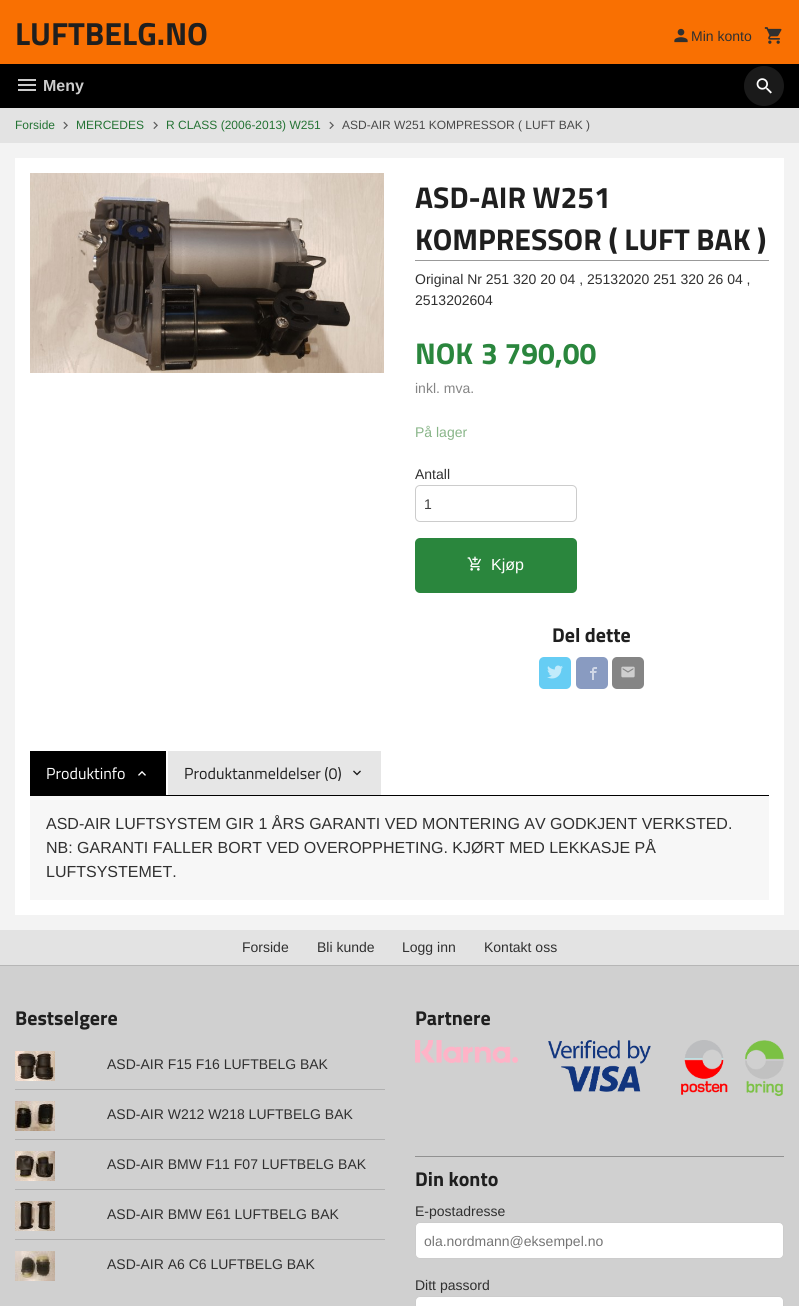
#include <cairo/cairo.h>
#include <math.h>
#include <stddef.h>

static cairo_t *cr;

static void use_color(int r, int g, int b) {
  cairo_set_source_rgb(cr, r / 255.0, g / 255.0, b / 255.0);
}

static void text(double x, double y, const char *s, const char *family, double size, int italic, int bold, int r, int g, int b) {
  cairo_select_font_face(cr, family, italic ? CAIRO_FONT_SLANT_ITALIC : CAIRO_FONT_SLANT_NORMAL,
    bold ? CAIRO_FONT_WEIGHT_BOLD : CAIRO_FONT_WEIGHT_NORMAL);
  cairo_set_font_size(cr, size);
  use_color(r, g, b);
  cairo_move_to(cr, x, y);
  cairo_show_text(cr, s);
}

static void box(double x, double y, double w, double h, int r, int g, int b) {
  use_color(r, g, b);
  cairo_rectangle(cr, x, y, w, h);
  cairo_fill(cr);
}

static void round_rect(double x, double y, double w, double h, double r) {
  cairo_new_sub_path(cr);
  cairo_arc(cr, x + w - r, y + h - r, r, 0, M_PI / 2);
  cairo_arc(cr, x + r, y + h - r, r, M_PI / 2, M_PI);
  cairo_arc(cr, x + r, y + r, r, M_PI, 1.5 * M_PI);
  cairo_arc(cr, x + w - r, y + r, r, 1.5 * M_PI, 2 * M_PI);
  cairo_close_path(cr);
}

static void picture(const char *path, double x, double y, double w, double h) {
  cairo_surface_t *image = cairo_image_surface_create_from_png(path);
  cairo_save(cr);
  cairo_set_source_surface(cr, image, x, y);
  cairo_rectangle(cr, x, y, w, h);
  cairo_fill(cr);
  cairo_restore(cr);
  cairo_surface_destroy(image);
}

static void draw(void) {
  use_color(243, 243, 243);
  cairo_paint(cr);
  box(0, 0, 799, 64, 249, 112, 2);
  picture("img_01.png", 674, 28, 14, 15);
  picture("img_02.png", 764, 27, 18, 17);
  box(0, 64, 799, 44, 0, 0, 0);
  picture("img_03.png", 18, 79, 18, 12);
  use_color(26, 26, 26);
  cairo_arc(cr, 764, 86, 20, 0, 2 * M_PI);
  cairo_fill(cr);
  picture("img_04.png", 756, 78, 16, 16);
  box(0, 108, 799, 35, 227, 227, 227);
  picture("img_05.png", 63, 121, 5, 8);
  picture("img_05.png", 153, 121, 5, 8);
  picture("img_05.png", 329, 121, 5, 8);
  box(15, 158, 769, 757, 255, 255, 255);
  picture("img_06.png", 30, 173, 354, 200);
  box(415, 260, 354, 1, 153, 153, 153);
  round_rect(415.5, 485.5, 161, 36, 4.5);
  use_color(204, 204, 204);
  cairo_set_line_width(cr, 1);
  cairo_stroke(cr);
  use_color(42, 134, 61);
  round_rect(415, 538, 162, 55, 5);
  cairo_fill(cr);
  picture("img_07.png", 467, 556, 14, 15);
  use_color(102, 205, 244);
  round_rect(539, 657, 32, 32, 5);
  cairo_fill(cr);
  picture("img_08.png", 547, 665, 16, 14);
  use_color(137, 155, 193);
  round_rect(576, 657, 32, 32, 5);
  cairo_fill(cr);
  picture("img_09.png", 590, 667, 7, 13);
  use_color(133, 133, 133);
  round_rect(612, 657, 32, 32, 5);
  cairo_fill(cr);
  picture("img_10.png", 621, 666, 14, 12);
  box(30, 751, 136, 44, 0, 0, 0);
  picture("img_11.png", 138, 771, 8, 5);
  box(168, 751, 213, 44, 230, 230, 230);
  picture("img_12.png", 353, 770, 8, 6);
  box(30, 796, 739, 104, 247, 247, 247);
  box(30, 795, 739, 1, 0, 0, 0);
  box(0, 930, 799, 35, 227, 227, 227);
  box(0, 966, 799, 340, 208, 208, 208);
  box(0, 965, 799, 1, 182, 182, 182);
  box(15, 1089, 370, 1, 177, 177, 177);
  picture("img_13.png", 15, 1051, 40, 30);
  box(15, 1139, 370, 1, 177, 177, 177);
  picture("img_14.png", 15, 1101, 40, 30);
  box(15, 1189, 370, 1, 177, 177, 177);
  picture("img_15.png", 15, 1151, 40, 30);
  box(15, 1239, 370, 1, 177, 177, 177);
  picture("img_16.png", 15, 1201, 40, 30);
  picture("img_17.png", 15, 1251, 40, 30);
  box(415, 1156, 369, 1, 145, 145, 145);
  picture("img_18.png", 415, 1040, 103, 23);
  picture("img_19.png", 548, 1040, 103, 52);
  picture("img_20.png", 681, 1040, 103, 56);
  use_color(255, 255, 255);
  round_rect(415.5, 1222.5, 368, 36, 4.5);
  cairo_fill_preserve(cr);
  use_color(204, 204, 204);
  cairo_stroke(cr);
  use_color(255, 255, 255);
  round_rect(415.5, 1296.5, 368, 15, 4.5);
  cairo_fill_preserve(cr);
  use_color(204, 204, 204);
  cairo_stroke(cr);
  text(15, 45, "LUFTBELG.NO", "Titillium Web", 32, 0, 1, 31, 31, 31);
  text(691, 41, "Min konto", "Liberation Sans", 14, 0, 0, 48, 48, 48);
  text(43, 91, "Meny", "Liberation Sans", 16, 0, 1, 204, 204, 204);
  text(15, 129, "Forside", "Liberation Sans", 12, 0, 0, 36, 115, 52);
  text(76, 129, "MERCEDES", "Liberation Sans", 12, 0, 0, 36, 115, 52);
  text(166, 129, "R CLASS (2006-2013) W251", "Liberation Sans", 12, 0, 0, 36, 115, 52);
  text(342, 129, "ASD-AIR W251 KOMPRESSOR ( LUFT BAK )", "Liberation Sans", 12, 0, 0, 73, 73, 73);
  text(415, 208, "ASD-AIR W251", "Titillium Web", 30, 0, 1, 31, 31, 31);
  text(415, 250, "KOMPRESSOR ( LUFT BAK )", "Titillium Web", 30, 0, 1, 31, 31, 31);
  text(415, 284, "Original Nr 251 320 20 04 , 25132020 251 320 26 04 ,", "Liberation Sans", 14, 0, 0, 48, 48, 48);
  text(415, 305, "2513202604", "Liberation Sans", 14, 0, 0, 48, 48, 48);
  text(415, 364, "NOK", "Titillium Web", 30, 0, 1, 42, 134, 61);
  text(481, 364, "3 790,00", "Titillium Web", 30, 0, 1, 42, 134, 61);
  text(415, 393, "inkl. mva.", "Liberation Sans", 14, 0, 0, 133, 133, 133);
  text(415, 437, "På lager", "Liberation Sans", 14, 0, 0, 136, 181, 136);
  text(415, 479, "Antall", "Liberation Sans", 14, 0, 0, 48, 48, 48);
  text(424, 509, "1", "Liberation Sans", 14, 0, 0, 64, 64, 64);
  text(491, 570, "Kjøp", "Liberation Sans", 16, 0, 0, 255, 255, 255);
  text(552, 642, "Del dette", "Titillium Web", 20, 0, 1, 31, 31, 31);
  text(46, 779, "Produktinfo", "Titillium Web", 16, 0, 0, 255, 255, 255);
  text(184, 779, "Produktanmeldelser (0)", "Titillium Web", 16, 0, 0, 31, 31, 31);
  text(46, 829, "ASD-AIR LUFTSYSTEM GIR 1 ÅRS GARANTI VED MONTERING AV GODKJENT VERKSTED.", "Liberation Sans", 16, 0, 0, 48, 48, 48);
  text(46, 853, "NB: GARANTI FALLER BORT VED OVEROPPHETING. KJØRT MED LEKKASJE PÅ", "Liberation Sans", 16, 0, 0, 48, 48, 48);
  text(46, 877, "LUFTSYSTEMET.", "Liberation Sans", 16, 0, 0, 48, 48, 48);
  text(242, 952, "Forside", "Liberation Sans", 14, 0, 0, 48, 48, 48);
  text(317, 952, "Bli kunde", "Liberation Sans", 14, 0, 0, 48, 48, 48);
  text(402, 952, "Logg inn", "Liberation Sans", 14, 0, 0, 48, 48, 48);
  text(484, 952, "Kontakt oss", "Liberation Sans", 14, 0, 0, 48, 48, 48);
  text(15, 1025, "Bestselgere", "Titillium Web", 20, 0, 1, 31, 31, 31);
  text(107, 1069, "ASD-AIR F15 F16 LUFTBELG BAK", "Liberation Sans", 14, 0, 0, 48, 48, 48);
  text(107, 1119, "ASD-AIR W212 W218 LUFTBELG BAK", "Liberation Sans", 14, 0, 0, 48, 48, 48);
  text(107, 1169, "ASD-AIR BMW F11 F07 LUFTBELG BAK", "Liberation Sans", 14, 0, 0, 48, 48, 48);
  text(107, 1219, "ASD-AIR BMW E61 LUFTBELG BAK", "Liberation Sans", 14, 0, 0, 48, 48, 48);
  text(107, 1269, "ASD-AIR A6 C6 LUFTBELG BAK", "Liberation Sans", 14, 0, 0, 48, 48, 48);
  text(415, 1025, "Partnere", "Titillium Web", 20, 0, 1, 31, 31, 31);
  text(415, 1186, "Din konto", "Titillium Web", 20, 0, 1, 31, 31, 31);
  text(415, 1216, "E-postadresse", "Liberation Sans", 14, 0, 0, 48, 48, 48);
  text(424, 1246, "ola.nordmann@eksempel.no", "Liberation Sans", 14, 0, 0, 117, 117, 117);
  text(415, 1290, "Ditt passord", "Liberation Sans", 14, 0, 0, 48, 48, 48);
}

int main(void) {
  cairo_surface_t *surface = cairo_image_surface_create(CAIRO_FORMAT_RGB24, 799, 1306);
  cr = cairo_create(surface);
  cairo_font_options_t *options = cairo_font_options_create();
  cairo_font_options_set_hint_metrics(options, CAIRO_HINT_METRICS_OFF);
  cairo_font_options_set_hint_style(options, CAIRO_HINT_STYLE_NONE);
  cairo_set_font_options(cr, options);
  cairo_set_miter_limit(cr, 4);
  draw();
  cairo_surface_write_to_png(surface, "out.png");
  cairo_font_options_destroy(options);
  cairo_destroy(cr);
  cairo_surface_destroy(surface);
  return 0;
}
